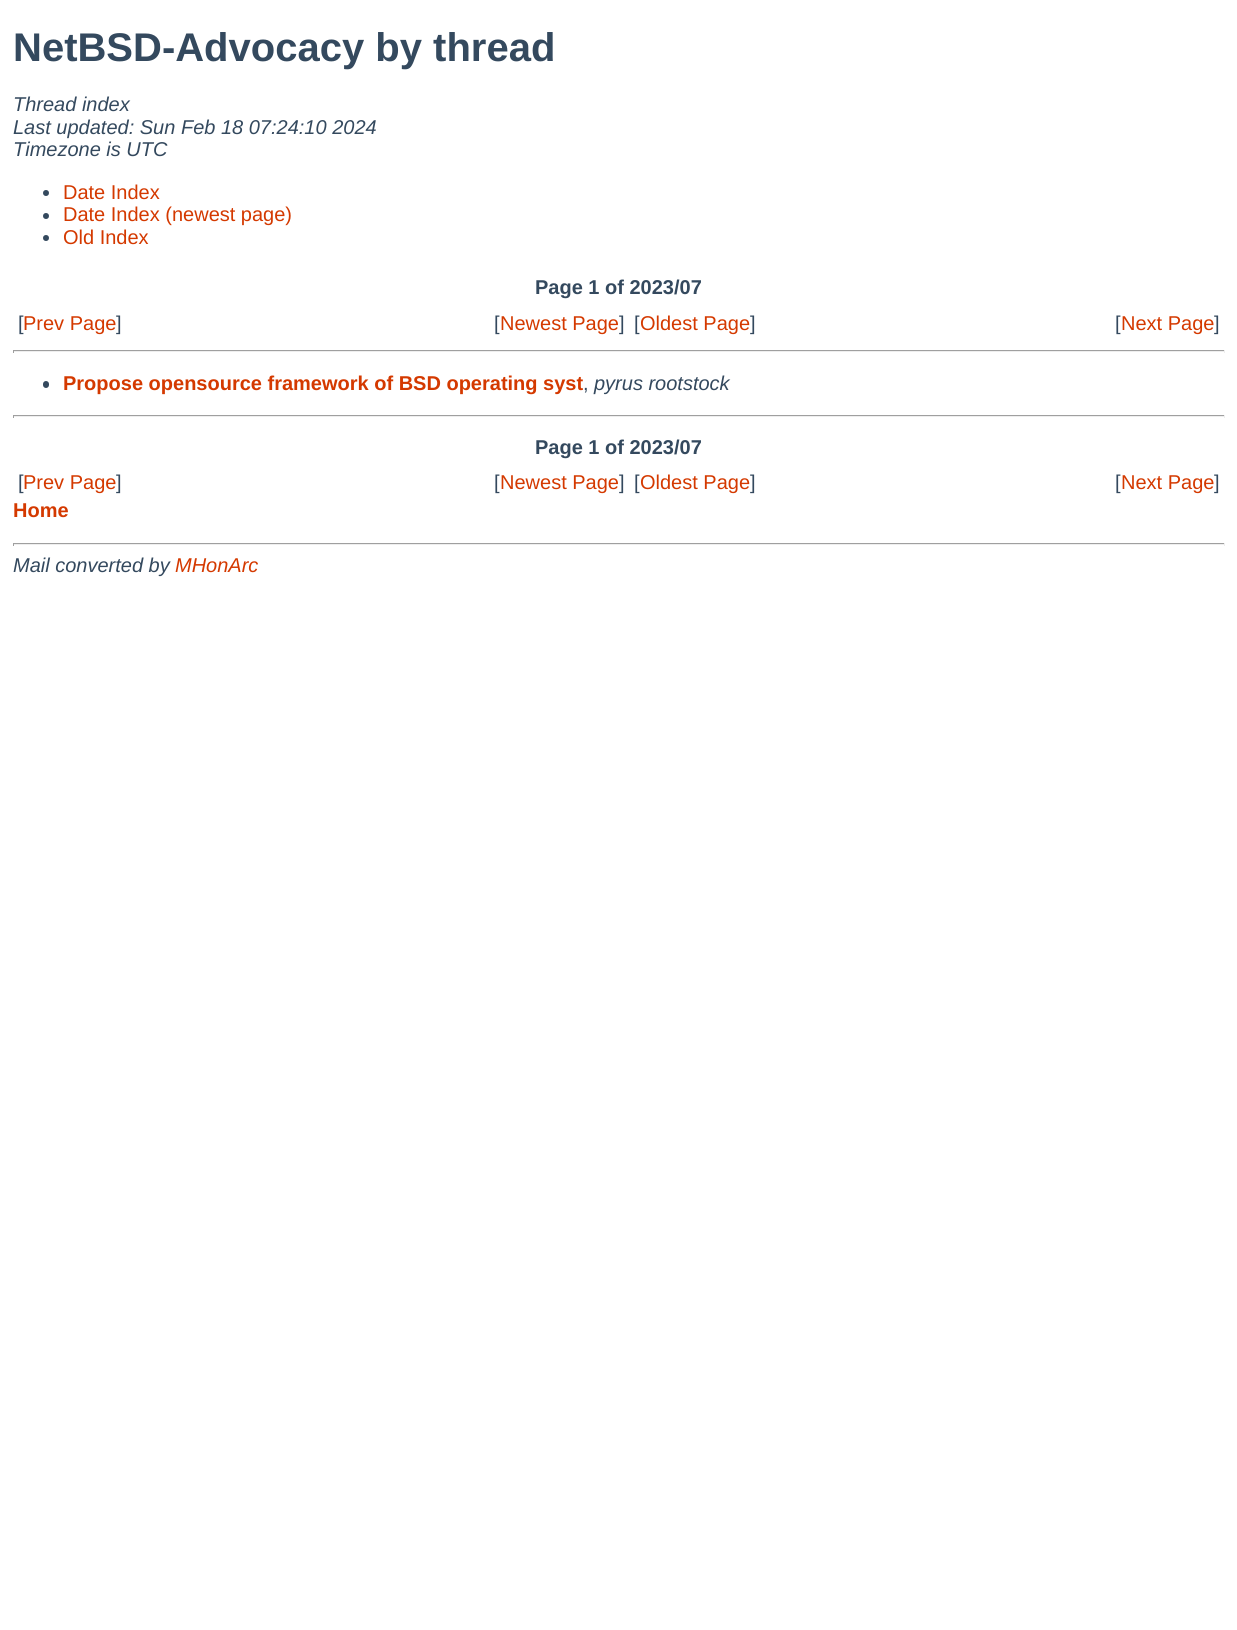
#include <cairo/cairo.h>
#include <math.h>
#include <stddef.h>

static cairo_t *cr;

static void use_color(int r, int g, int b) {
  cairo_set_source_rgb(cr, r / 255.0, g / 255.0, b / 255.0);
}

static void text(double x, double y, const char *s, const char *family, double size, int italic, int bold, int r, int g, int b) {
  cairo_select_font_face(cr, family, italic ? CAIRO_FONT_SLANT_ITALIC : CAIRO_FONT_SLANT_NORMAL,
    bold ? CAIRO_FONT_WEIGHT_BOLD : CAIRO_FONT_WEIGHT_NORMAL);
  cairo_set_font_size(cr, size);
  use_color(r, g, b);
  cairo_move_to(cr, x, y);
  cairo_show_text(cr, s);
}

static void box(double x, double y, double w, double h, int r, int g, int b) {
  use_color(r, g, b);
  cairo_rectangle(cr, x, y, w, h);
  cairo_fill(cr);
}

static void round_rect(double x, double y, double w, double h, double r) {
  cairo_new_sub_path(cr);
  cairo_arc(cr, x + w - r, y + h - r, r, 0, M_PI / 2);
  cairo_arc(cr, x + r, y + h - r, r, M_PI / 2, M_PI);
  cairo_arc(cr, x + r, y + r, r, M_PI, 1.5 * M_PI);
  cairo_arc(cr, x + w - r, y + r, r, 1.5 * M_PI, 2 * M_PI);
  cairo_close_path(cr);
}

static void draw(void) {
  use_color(255, 255, 255);
  cairo_paint(cr);
  use_color(52, 73, 94);
  cairo_arc(cr, 46, 193, 3, 0, 2 * M_PI);
  cairo_fill(cr);
  cairo_arc(cr, 46, 216, 3, 0, 2 * M_PI);
  cairo_fill(cr);
  cairo_arc(cr, 46, 238, 3, 0, 2 * M_PI);
  cairo_fill(cr);
  box(13, 350, 1212, 1, 159, 159, 159);
  box(1224, 350, 1, 3, 238, 238, 238);
  box(13, 351, 1212, 1, 238, 238, 238);
  box(13, 350, 1, 3, 159, 159, 159);
  use_color(52, 73, 94);
  round_rect(43, 381, 6, 7, 3);
  cairo_fill(cr);
  box(13, 415, 1212, 1, 159, 159, 159);
  box(1224, 415, 1, 3, 238, 238, 238);
  box(13, 416, 1212, 1, 238, 238, 238);
  box(13, 415, 1, 3, 159, 159, 159);
  box(13, 543, 1212, 1, 159, 159, 159);
  box(1224, 543, 1, 3, 238, 238, 238);
  box(13, 544, 1212, 1, 238, 238, 238);
  box(13, 543, 1, 3, 159, 159, 159);
  text(13, 61, "NetBSD-Advocacy by thread", "Liberation Sans", 40, 0, 1, 52, 73, 94);
  text(13, 111, "Thread index", "Liberation Sans", 20, 1, 0, 52, 73, 94);
  text(13, 134, "Last updated: Sun Feb 18 07:24:10 2024", "Liberation Sans", 20, 1, 0, 52, 73, 94);
  text(13, 156, "Timezone is UTC", "Liberation Sans", 20, 1, 0, 52, 73, 94);
  text(63, 199, "Date Index", "Liberation Sans", 20, 0, 0, 212, 57, 0);
  text(63, 221, "Date Index (newest page)", "Liberation Sans", 20, 0, 0, 212, 57, 0);
  text(63, 244, "Old Index", "Liberation Sans", 20, 0, 0, 212, 57, 0);
  text(535, 294, "Page 1 of 2023/07", "Liberation Sans", 20, 0, 1, 52, 73, 94);
  text(18, 330, "[", "Liberation Sans", 20, 0, 0, 52, 73, 94);
  text(23, 330, "Prev Page", "Liberation Sans", 20, 0, 0, 212, 57, 0);
  text(116, 330, "]", "Liberation Sans", 20, 0, 0, 52, 73, 94);
  text(494, 330, "[", "Liberation Sans", 20, 0, 0, 52, 73, 94);
  text(500, 330, "Newest Page", "Liberation Sans", 20, 0, 0, 212, 57, 0);
  text(619, 330, "]", "Liberation Sans", 20, 0, 0, 52, 73, 94);
  text(634, 330, "[", "Liberation Sans", 20, 0, 0, 52, 73, 94);
  text(640, 330, "Oldest Page", "Liberation Sans", 20, 0, 0, 212, 57, 0);
  text(750, 330, "]", "Liberation Sans", 20, 0, 0, 52, 73, 94);
  text(1115, 330, "[", "Liberation Sans", 20, 0, 0, 52, 73, 94);
  text(1121, 330, "Next Page", "Liberation Sans", 20, 0, 0, 212, 57, 0);
  text(1214, 330, "]", "Liberation Sans", 20, 0, 0, 52, 73, 94);
  text(63, 390, "Propose opensource framework of BSD operating syst", "Liberation Sans", 20, 0, 1, 212, 57, 0);
  text(594, 390, "pyrus rootstock", "Liberation Sans", 20, 1, 0, 52, 73, 94);
  text(583, 390, ",", "Liberation Sans", 20, 0, 0, 52, 73, 94);
  text(535, 454, "Page 1 of 2023/07", "Liberation Sans", 20, 0, 1, 52, 73, 94);
  text(18, 489, "[", "Liberation Sans", 20, 0, 0, 52, 73, 94);
  text(23, 489, "Prev Page", "Liberation Sans", 20, 0, 0, 212, 57, 0);
  text(116, 489, "]", "Liberation Sans", 20, 0, 0, 52, 73, 94);
  text(494, 489, "[", "Liberation Sans", 20, 0, 0, 52, 73, 94);
  text(500, 489, "Newest Page", "Liberation Sans", 20, 0, 0, 212, 57, 0);
  text(619, 489, "]", "Liberation Sans", 20, 0, 0, 52, 73, 94);
  text(634, 489, "[", "Liberation Sans", 20, 0, 0, 52, 73, 94);
  text(640, 489, "Oldest Page", "Liberation Sans", 20, 0, 0, 212, 57, 0);
  text(750, 489, "]", "Liberation Sans", 20, 0, 0, 52, 73, 94);
  text(1115, 489, "[", "Liberation Sans", 20, 0, 0, 52, 73, 94);
  text(1121, 489, "Next Page", "Liberation Sans", 20, 0, 0, 212, 57, 0);
  text(1214, 489, "]", "Liberation Sans", 20, 0, 0, 52, 73, 94);
  text(13, 517, "Home", "Liberation Sans", 20, 0, 1, 212, 57, 0);
  text(13, 572, "Mail converted by", "Liberation Sans", 20, 1, 0, 52, 73, 94);
  text(175, 572, "MHonArc", "Liberation Sans", 20, 1, 0, 212, 57, 0);
}

int main(void) {
  cairo_surface_t *surface = cairo_image_surface_create(CAIRO_FORMAT_RGB24, 1237, 1630);
  cr = cairo_create(surface);
  cairo_font_options_t *options = cairo_font_options_create();
  cairo_font_options_set_hint_metrics(options, CAIRO_HINT_METRICS_OFF);
  cairo_font_options_set_hint_style(options, CAIRO_HINT_STYLE_NONE);
  cairo_set_font_options(cr, options);
  cairo_set_miter_limit(cr, 4);
  draw();
  cairo_surface_write_to_png(surface, "out.png");
  cairo_font_options_destroy(options);
  cairo_destroy(cr);
  cairo_surface_destroy(surface);
  return 0;
}
